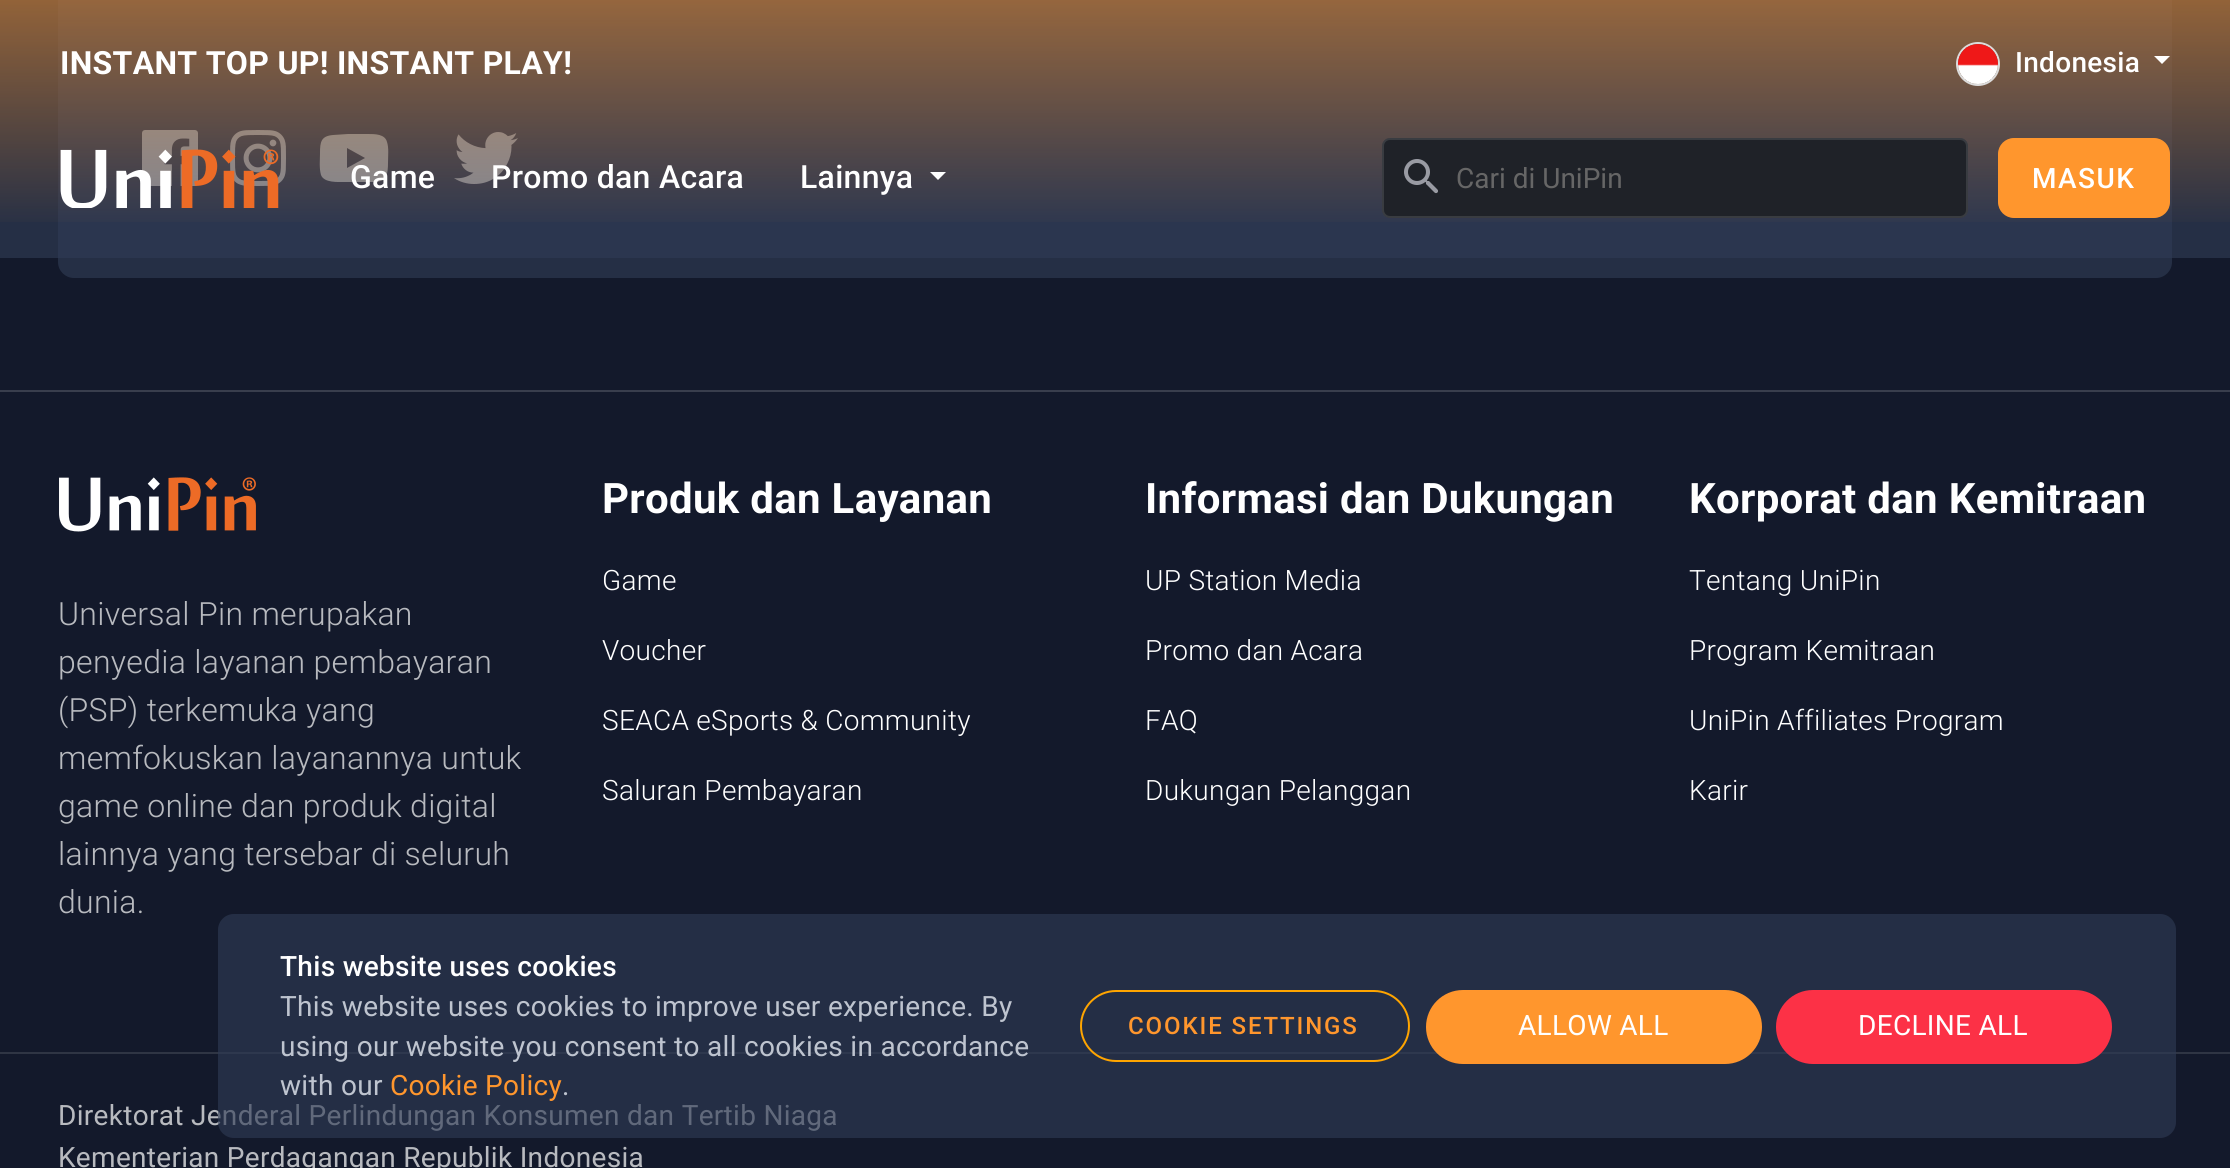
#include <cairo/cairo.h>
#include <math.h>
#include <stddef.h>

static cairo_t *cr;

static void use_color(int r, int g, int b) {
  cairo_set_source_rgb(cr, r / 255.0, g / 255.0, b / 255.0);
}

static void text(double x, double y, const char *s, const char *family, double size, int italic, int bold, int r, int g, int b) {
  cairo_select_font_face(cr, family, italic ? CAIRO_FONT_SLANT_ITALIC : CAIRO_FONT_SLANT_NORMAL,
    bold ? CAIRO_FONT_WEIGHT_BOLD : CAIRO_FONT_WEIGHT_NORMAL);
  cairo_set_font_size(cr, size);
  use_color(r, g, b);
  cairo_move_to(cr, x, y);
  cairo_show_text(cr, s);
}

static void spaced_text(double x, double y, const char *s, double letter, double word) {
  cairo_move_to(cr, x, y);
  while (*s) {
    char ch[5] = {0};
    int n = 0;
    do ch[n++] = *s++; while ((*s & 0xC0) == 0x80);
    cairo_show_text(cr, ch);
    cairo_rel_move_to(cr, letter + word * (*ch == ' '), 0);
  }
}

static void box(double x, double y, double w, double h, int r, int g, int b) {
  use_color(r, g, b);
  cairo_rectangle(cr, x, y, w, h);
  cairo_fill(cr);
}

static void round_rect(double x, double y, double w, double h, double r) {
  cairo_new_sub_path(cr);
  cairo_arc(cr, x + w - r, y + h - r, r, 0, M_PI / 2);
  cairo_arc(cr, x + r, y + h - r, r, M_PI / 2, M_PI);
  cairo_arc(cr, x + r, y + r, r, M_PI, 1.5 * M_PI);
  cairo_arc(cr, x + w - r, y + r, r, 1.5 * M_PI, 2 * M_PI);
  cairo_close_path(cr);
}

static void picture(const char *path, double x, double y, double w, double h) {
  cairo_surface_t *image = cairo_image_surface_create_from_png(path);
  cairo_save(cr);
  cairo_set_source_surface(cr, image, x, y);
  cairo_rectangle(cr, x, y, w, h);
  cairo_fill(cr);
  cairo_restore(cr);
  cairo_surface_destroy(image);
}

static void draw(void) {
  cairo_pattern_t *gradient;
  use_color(19, 25, 43);
  cairo_paint(cr);
  box(0, 0, 2230, 258, 37, 47, 69);
  round_rect(58, -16, 2114, 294, 16);
  cairo_fill(cr);
  box(58, 0, 2114, 258, 43, 54, 79);
  picture("img_04.png", 142, 130, 56, 56);
  picture("img_05.png", 230, 130, 56, 56);
  use_color(123, 132, 147);
  cairo_new_path(cr);
  cairo_move_to(cr, 387, 142);
  cairo_curve_to(cr, 385, 134, 375, 134, 368, 134);
  cairo_line_to(cr, 348, 134);
  cairo_line_to(cr, 333, 135);
  cairo_curve_to(cr, 321, 136, 320, 142, 320, 153);
  cairo_curve_to(cr, 320, 160, 319, 168, 321, 175);
  cairo_curve_to(cr, 324, 183, 338, 182, 345, 182);
  cairo_line_to(cr, 362, 182);
  cairo_curve_to(cr, 381, 182, 388, 184, 388, 163);
  cairo_curve_to(cr, 388, 156, 389, 148, 387, 142);
  cairo_close_path(cr);
  cairo_move_to(cr, 347, 168);
  cairo_line_to(cr, 347, 148);
  cairo_line_to(cr, 365, 158);
  cairo_close_path(cr);
  cairo_fill(cr);
  picture("img_06.png", 454, 132, 64, 52);
  gradient = cairo_pattern_create_linear(1115, 0, 1115, 258);
  cairo_pattern_add_color_stop_rgba(gradient, 0, 1, 0.588, 0.176, 0.5);
  cairo_pattern_add_color_stop_rgba(gradient, 0.9, 1, 0.588, 0.176, 0);
  cairo_set_source(cr, gradient);
  cairo_pattern_destroy(gradient);
  cairo_rectangle(cr, 0, 0, 2230, 222);
  cairo_fill(cr);
  cairo_arc(cr, 1978, 64, 21, 0, 2 * M_PI);
  use_color(220, 220, 220);
  cairo_stroke(cr);
  picture("img_01.png", 1958, 44, 40, 40);
  use_color(255, 255, 255);
  cairo_new_path(cr);
  cairo_move_to(cr, 2154, 56);
  cairo_line_to(cr, 2170, 56);
  cairo_line_to(cr, 2162, 64);
  cairo_close_path(cr);
  cairo_fill(cr);
  picture("img_02.png", 60, 149, 219, 59);
  cairo_new_path(cr);
  cairo_move_to(cr, 930, 172);
  cairo_line_to(cr, 946, 172);
  cairo_line_to(cr, 938, 180);
  cairo_close_path(cr);
  cairo_fill(cr);
  use_color(31, 34, 40);
  round_rect(1382, 138, 586, 80, 8);
  cairo_fill(cr);
  round_rect(1383, 139, 584, 78, 7);
  cairo_set_source_rgba(cr, 1, 1, 1, 0.12);
  cairo_stroke(cr);
  picture("img_03.png", 1404, 159, 34, 35);
  use_color(255, 150, 45);
  round_rect(1999, 139, 170, 78, 15);
  cairo_fill_preserve(cr);
  cairo_stroke(cr);
  box(0, 390, 2230, 2, 57, 62, 77);
  picture("img_07.png", 59, 477, 197, 55);
  box(0, 1052, 2230, 2, 47, 53, 68);
  cairo_select_font_face(cr, "Roboto", CAIRO_FONT_SLANT_NORMAL, CAIRO_FONT_WEIGHT_BOLD);
  cairo_set_font_size(cr, 32);
  use_color(255, 255, 255);
  spaced_text(60, 74, "INSTANT TOP UP! INSTANT PLAY!", 0.3, 0);
  cairo_select_font_face(cr, "Roboto Medium", CAIRO_FONT_SLANT_NORMAL, CAIRO_FONT_WEIGHT_NORMAL);
  cairo_set_font_size(cr, 28);
  spaced_text(2015, 72, "Indonesia", 0.3, 0);
  cairo_set_font_size(cr, 32);
  spaced_text(350, 188, "Game", 0.3, 0);
  spaced_text(491, 188, "Promo dan Acara", 0.3, 0);
  spaced_text(800, 188, "Lainnya", 0.3, 0);
  text(1456, 188, "Cari di UniPin", "Roboto", 28, 0, 0, 102, 102, 102);
  cairo_select_font_face(cr, "Roboto Medium", CAIRO_FONT_SLANT_NORMAL, CAIRO_FONT_WEIGHT_NORMAL);
  use_color(255, 255, 255);
  spaced_text(2032, 188, "MASUK", 1.5, 0);
  cairo_select_font_face(cr, "Roboto Light", CAIRO_FONT_SLANT_NORMAL, CAIRO_FONT_WEIGHT_NORMAL);
  cairo_set_font_size(cr, 32);
  use_color(184, 186, 191);
  spaced_text(58, 625, "Universal Pin merupakan", 0.3, 0);
  spaced_text(58, 673, "penyedia layanan pembayaran", 0.3, 0);
  spaced_text(58, 721, "(PSP) terkemuka yang", 0.3, 0);
  spaced_text(58, 769, "memfokuskan layanannya untuk", 0.3, 0);
  spaced_text(58, 817, "game online dan produk digital", 0.3, 0);
  spaced_text(58, 865, "lainnya yang tersebar di seluruh", 0.3, 0);
  spaced_text(58, 913, "dunia.", 0.3, 0);
  cairo_select_font_face(cr, "Roboto", CAIRO_FONT_SLANT_NORMAL, CAIRO_FONT_WEIGHT_BOLD);
  cairo_set_font_size(cr, 42);
  use_color(255, 255, 255);
  spaced_text(602, 513, "Produk dan Layanan", 0.3, 0);
  cairo_select_font_face(cr, "Roboto Light", CAIRO_FONT_SLANT_NORMAL, CAIRO_FONT_WEIGHT_NORMAL);
  cairo_set_font_size(cr, 28);
  spaced_text(602, 590, "Game", 0.3, 0);
  spaced_text(602, 660, "Voucher", 0.3, 0);
  spaced_text(602, 730, "SEACA eSports & Community", 0.3, 0);
  spaced_text(602, 800, "Saluran Pembayaran", 0.3, 0);
  cairo_select_font_face(cr, "Roboto", CAIRO_FONT_SLANT_NORMAL, CAIRO_FONT_WEIGHT_BOLD);
  cairo_set_font_size(cr, 42);
  spaced_text(1145, 513, "Informasi dan Dukungan", 0.3, 0);
  cairo_select_font_face(cr, "Roboto Light", CAIRO_FONT_SLANT_NORMAL, CAIRO_FONT_WEIGHT_NORMAL);
  cairo_set_font_size(cr, 28);
  spaced_text(1145, 590, "UP Station Media", 0.3, 0);
  spaced_text(1145, 660, "Promo dan Acara", 0.3, 0);
  spaced_text(1145, 730, "FAQ", 0.3, 0);
  spaced_text(1145, 800, "Dukungan Pelanggan", 0.3, 0);
  cairo_select_font_face(cr, "Roboto", CAIRO_FONT_SLANT_NORMAL, CAIRO_FONT_WEIGHT_BOLD);
  cairo_set_font_size(cr, 42);
  spaced_text(1689, 513, "Korporat dan Kemitraan", 0.3, 0);
  cairo_select_font_face(cr, "Roboto Light", CAIRO_FONT_SLANT_NORMAL, CAIRO_FONT_WEIGHT_NORMAL);
  cairo_set_font_size(cr, 28);
  spaced_text(1689, 590, "Tentang UniPin", 0.3, 0);
  spaced_text(1689, 660, "Program Kemitraan", 0.3, 0);
  spaced_text(1689, 730, "UniPin Affiliates Program", 0.3, 0);
  spaced_text(1689, 800, "Karir", 0.3, 0);
  cairo_select_font_face(cr, "Roboto", CAIRO_FONT_SLANT_NORMAL, CAIRO_FONT_WEIGHT_NORMAL);
  use_color(184, 186, 191);
  spaced_text(58, 1125, "Direktorat Jenderal Perlindungan Konsumen dan Tertib Niaga", 0.3, 0);
  spaced_text(58, 1167, "Kementerian Perdagangan Republik Indonesia", 0.3, 0);
  cairo_set_source_rgba(cr, 0.184, 0.18, 0.235, 0.6);
  round_rect(218, 914, 1958, 224, 16);
  cairo_fill(cr);
  cairo_set_source_rgba(cr, 0.176, 0.588, 1, 0.08);
  round_rect(218, 914, 1958, 224, 16);
  cairo_fill(cr);
  cairo_select_font_face(cr, "Roboto Medium", CAIRO_FONT_SLANT_NORMAL, CAIRO_FONT_WEIGHT_NORMAL);
  use_color(255, 255, 255);
  spaced_text(280, 976, "This website uses cookies", 0.3, 0);
  cairo_select_font_face(cr, "Roboto", CAIRO_FONT_SLANT_NORMAL, CAIRO_FONT_WEIGHT_NORMAL);
  use_color(190, 196, 207);
  spaced_text(280, 1016, "This website uses cookies to improve user experience. By", 0.3, 0);
  spaced_text(280, 1056, "using our website you consent to all cookies in accordance", 0.3, 0);
  spaced_text(280, 1095, "with our", 0.3, 0);
  use_color(255, 150, 45);
  spaced_text(390, 1095, "Cookie Policy", 0.3, 0);
  use_color(190, 196, 207);
  spaced_text(562, 1095, ".", 0.3, 0);
  round_rect(1081, 991, 328, 70, 35);
  use_color(255, 165, 0);
  cairo_stroke(cr);
  cairo_select_font_face(cr, "Roboto Medium", CAIRO_FONT_SLANT_NORMAL, CAIRO_FONT_WEIGHT_NORMAL);
  cairo_set_font_size(cr, 24);
  use_color(255, 150, 45);
  spaced_text(1128, 1034, "COOKIE SETTINGS", 1.9, 0);
  round_rect(1427, 991, 334, 72, 36);
  cairo_fill_preserve(cr);
  cairo_stroke(cr);
  cairo_select_font_face(cr, "Roboto", CAIRO_FONT_SLANT_NORMAL, CAIRO_FONT_WEIGHT_NORMAL);
  cairo_set_font_size(cr, 28);
  use_color(255, 255, 255);
  spaced_text(1518, 1035, "ALLOW ALL", 0.3, 0);
  use_color(252, 49, 70);
  round_rect(1777, 991, 334, 72, 36);
  cairo_fill_preserve(cr);
  cairo_stroke(cr);
  use_color(255, 255, 255);
  spaced_text(1858, 1035, "DECLINE ALL", 0.3, 0);
}

int main(void) {
  cairo_surface_t *surface = cairo_image_surface_create(CAIRO_FORMAT_RGB24, 2230, 1168);
  cr = cairo_create(surface);
  cairo_font_options_t *options = cairo_font_options_create();
  cairo_font_options_set_hint_metrics(options, CAIRO_HINT_METRICS_OFF);
  cairo_font_options_set_hint_style(options, CAIRO_HINT_STYLE_NONE);
  cairo_set_font_options(cr, options);
  cairo_set_miter_limit(cr, 4);
  draw();
  cairo_surface_write_to_png(surface, "out.png");
  cairo_font_options_destroy(options);
  cairo_destroy(cr);
  cairo_surface_destroy(surface);
  return 0;
}
